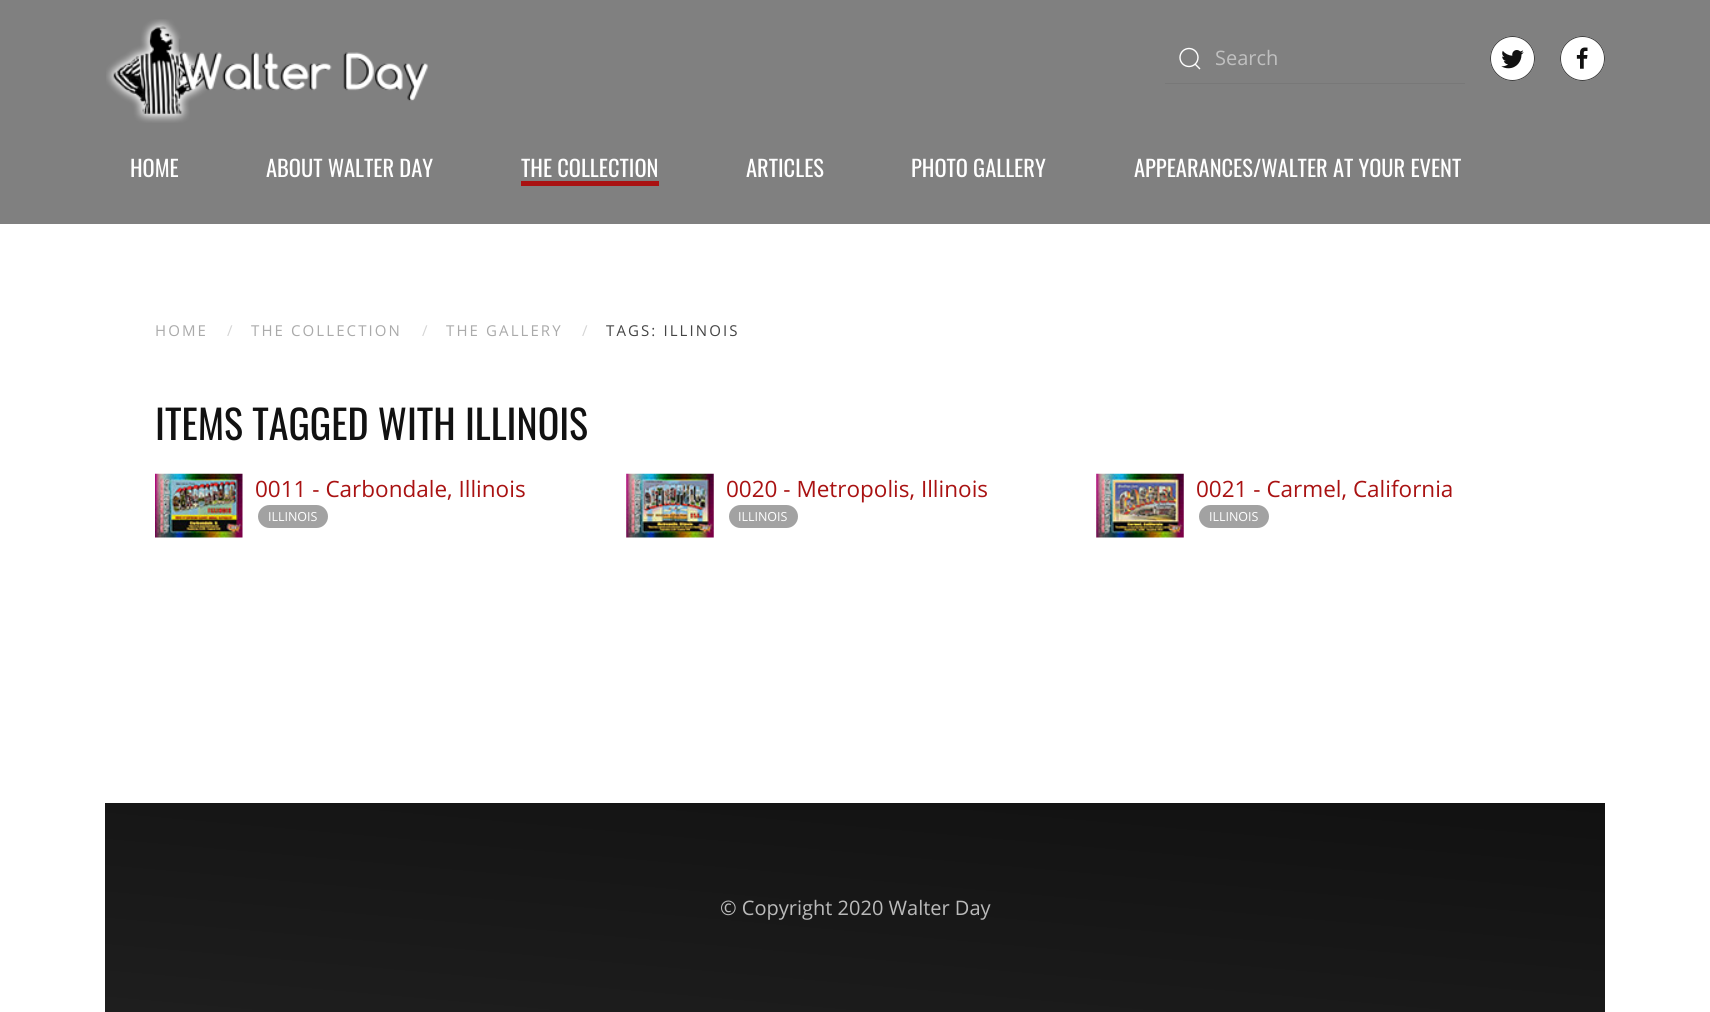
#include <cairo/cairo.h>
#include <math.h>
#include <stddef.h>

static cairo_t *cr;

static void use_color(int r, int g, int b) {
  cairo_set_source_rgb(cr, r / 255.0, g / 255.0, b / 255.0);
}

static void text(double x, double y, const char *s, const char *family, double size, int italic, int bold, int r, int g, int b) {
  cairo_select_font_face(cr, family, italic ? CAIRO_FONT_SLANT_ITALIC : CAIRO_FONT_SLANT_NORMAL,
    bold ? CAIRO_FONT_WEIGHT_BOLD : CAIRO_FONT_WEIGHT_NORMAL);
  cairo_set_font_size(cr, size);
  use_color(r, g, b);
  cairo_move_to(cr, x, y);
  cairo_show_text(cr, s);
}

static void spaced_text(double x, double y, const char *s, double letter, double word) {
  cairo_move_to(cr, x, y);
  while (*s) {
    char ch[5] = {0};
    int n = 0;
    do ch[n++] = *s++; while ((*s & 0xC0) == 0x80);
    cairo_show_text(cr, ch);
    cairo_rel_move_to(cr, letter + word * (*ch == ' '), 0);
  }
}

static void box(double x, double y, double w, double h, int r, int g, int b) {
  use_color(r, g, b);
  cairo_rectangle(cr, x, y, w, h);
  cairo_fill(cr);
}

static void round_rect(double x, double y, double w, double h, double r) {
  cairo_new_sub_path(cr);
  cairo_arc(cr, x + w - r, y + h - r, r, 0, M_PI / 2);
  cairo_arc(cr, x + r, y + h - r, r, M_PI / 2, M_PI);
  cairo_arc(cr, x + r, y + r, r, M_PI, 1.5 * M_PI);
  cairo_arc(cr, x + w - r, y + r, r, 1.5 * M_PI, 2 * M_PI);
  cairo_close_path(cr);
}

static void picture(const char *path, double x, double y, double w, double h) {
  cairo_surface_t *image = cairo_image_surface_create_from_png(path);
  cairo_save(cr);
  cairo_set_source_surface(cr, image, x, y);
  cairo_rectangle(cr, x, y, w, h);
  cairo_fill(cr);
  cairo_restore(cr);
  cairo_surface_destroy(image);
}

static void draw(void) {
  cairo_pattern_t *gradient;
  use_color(255, 255, 255);
  cairo_paint(cr);
  box(0, 0, 1710, 224, 128, 128, 128);
  picture("img_01.png", 106, 19, 323, 104);
  cairo_arc(cr, 1189, 57.5, 9, 0, 2 * M_PI);
  use_color(255, 255, 255);
  cairo_set_line_width(cr, 1.4);
  cairo_stroke(cr);
  cairo_new_path(cr);
  cairo_move_to(cr, 1195, 64);
  cairo_line_to(cr, 1200, 69);
  cairo_close_path(cr);
  cairo_stroke(cr);
  box(1165, 83, 300, 1, 120, 120, 120);
  use_color(255, 255, 255);
  cairo_arc(cr, 1512.5, 58.5, 22.5, 0, 2 * M_PI);
  cairo_fill(cr);
  cairo_arc(cr, 1512.5, 58.5, 22, 0, 2 * M_PI);
  cairo_set_source_rgba(cr, 0.067, 0.067, 0.067, 0.8);
  cairo_set_line_width(cr, 1);
  cairo_stroke(cr);
  picture("img_02.png", 1501, 50, 23, 19);
  use_color(255, 255, 255);
  cairo_arc(cr, 1582.5, 58.5, 22.5, 0, 2 * M_PI);
  cairo_fill(cr);
  cairo_arc(cr, 1582.5, 58.5, 22, 0, 2 * M_PI);
  cairo_set_source_rgba(cr, 0.067, 0.067, 0.067, 0.8);
  cairo_stroke(cr);
  picture("img_03.png", 1576, 47, 12, 22);
  box(521, 181, 138, 5, 169, 18, 18);
  picture("img_04.png", 155, 473, 88, 65);
  use_color(162, 162, 162);
  round_rect(258, 505, 70, 23, 11.5);
  cairo_fill(cr);
  picture("img_05.png", 626, 473, 88, 65);
  round_rect(729, 505, 69, 23, 11.5);
  cairo_fill(cr);
  picture("img_06.png", 1096, 473, 88, 65);
  round_rect(1199, 505, 70, 23, 11.5);
  cairo_fill(cr);
  gradient = cairo_pattern_create_linear(840, 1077, 870, 738);
  cairo_pattern_add_color_stop_rgba(gradient, 0, 0.118, 0.118, 0.118, 1);
  cairo_pattern_add_color_stop_rgba(gradient, 1, 0.067, 0.067, 0.067, 1);
  cairo_set_source(cr, gradient);
  cairo_pattern_destroy(gradient);
  cairo_rectangle(cr, 105, 803, 1500, 209);
  cairo_fill(cr);
  text(1215, 65, "Search", "Open Sans", 20, 0, 0, 192, 192, 192);
  text(130, 177, "HOME", "Oswald", 22.5, 0, 0, 255, 255, 255);
  text(266, 177, "ABOUT WALTER DAY", "Oswald", 22.5, 0, 0, 255, 255, 255);
  text(521, 177, "THE COLLECTION", "Oswald", 22.5, 0, 0, 255, 255, 255);
  text(746, 177, "ARTICLES", "Oswald", 22.5, 0, 0, 255, 255, 255);
  text(911, 177, "PHOTO GALLERY", "Oswald", 22.5, 0, 0, 255, 255, 255);
  text(1134, 177, "APPEARANCES/WALTER AT YOUR EVENT", "Oswald", 22.5, 0, 0, 255, 255, 255);
  cairo_select_font_face(cr, "Open Sans", CAIRO_FONT_SLANT_NORMAL, CAIRO_FONT_WEIGHT_NORMAL);
  cairo_set_font_size(cr, 15);
  use_color(170, 170, 170);
  spaced_text(155, 336, "HOME", 2.1, 0);
  text(227, 336, "/", "Open Sans", 15, 0, 0, 213, 213, 213);
  use_color(170, 170, 170);
  spaced_text(251, 336, "THE COLLECTION", 2.1, 0);
  text(422, 336, "/", "Open Sans", 15, 0, 0, 213, 213, 213);
  use_color(170, 170, 170);
  spaced_text(446, 336, "THE GALLERY", 2.1, 0);
  text(582, 336, "/", "Open Sans", 15, 0, 0, 213, 213, 213);
  use_color(68, 68, 68);
  spaced_text(606, 336, "TAGS: ILLINOIS", 2.1, 0);
  text(155, 440, "ITEMS TAGGED WITH ILLINOIS", "Oswald", 40, 0, 0, 17, 17, 17);
  text(255, 497, "0011 - Carbondale, Illinois", "Open Sans", 22.5, 0, 0, 169, 18, 18);
  text(268, 521, "ILLINOIS", "Open Sans", 12.5, 0, 0, 255, 255, 255);
  text(726, 497, "0020 - Metropolis, Illinois", "Open Sans", 22.5, 0, 0, 169, 18, 18);
  text(738, 521, "ILLINOIS", "Open Sans", 12.5, 0, 0, 255, 255, 255);
  text(1196, 497, "0021 - Carmel, California", "Open Sans", 22.5, 0, 0, 169, 18, 18);
  text(1209, 521, "ILLINOIS", "Open Sans", 12.5, 0, 0, 255, 255, 255);
  text(720, 915, "© Copyright 2020 Walter Day", "Open Sans", 20, 0, 0, 186, 186, 186);
}

int main(void) {
  cairo_surface_t *surface = cairo_image_surface_create(CAIRO_FORMAT_RGB24, 1710, 1012);
  cr = cairo_create(surface);
  cairo_font_options_t *options = cairo_font_options_create();
  cairo_font_options_set_hint_metrics(options, CAIRO_HINT_METRICS_OFF);
  cairo_font_options_set_hint_style(options, CAIRO_HINT_STYLE_NONE);
  cairo_set_font_options(cr, options);
  cairo_set_miter_limit(cr, 4);
  draw();
  cairo_surface_write_to_png(surface, "out.png");
  cairo_font_options_destroy(options);
  cairo_destroy(cr);
  cairo_surface_destroy(surface);
  return 0;
}
